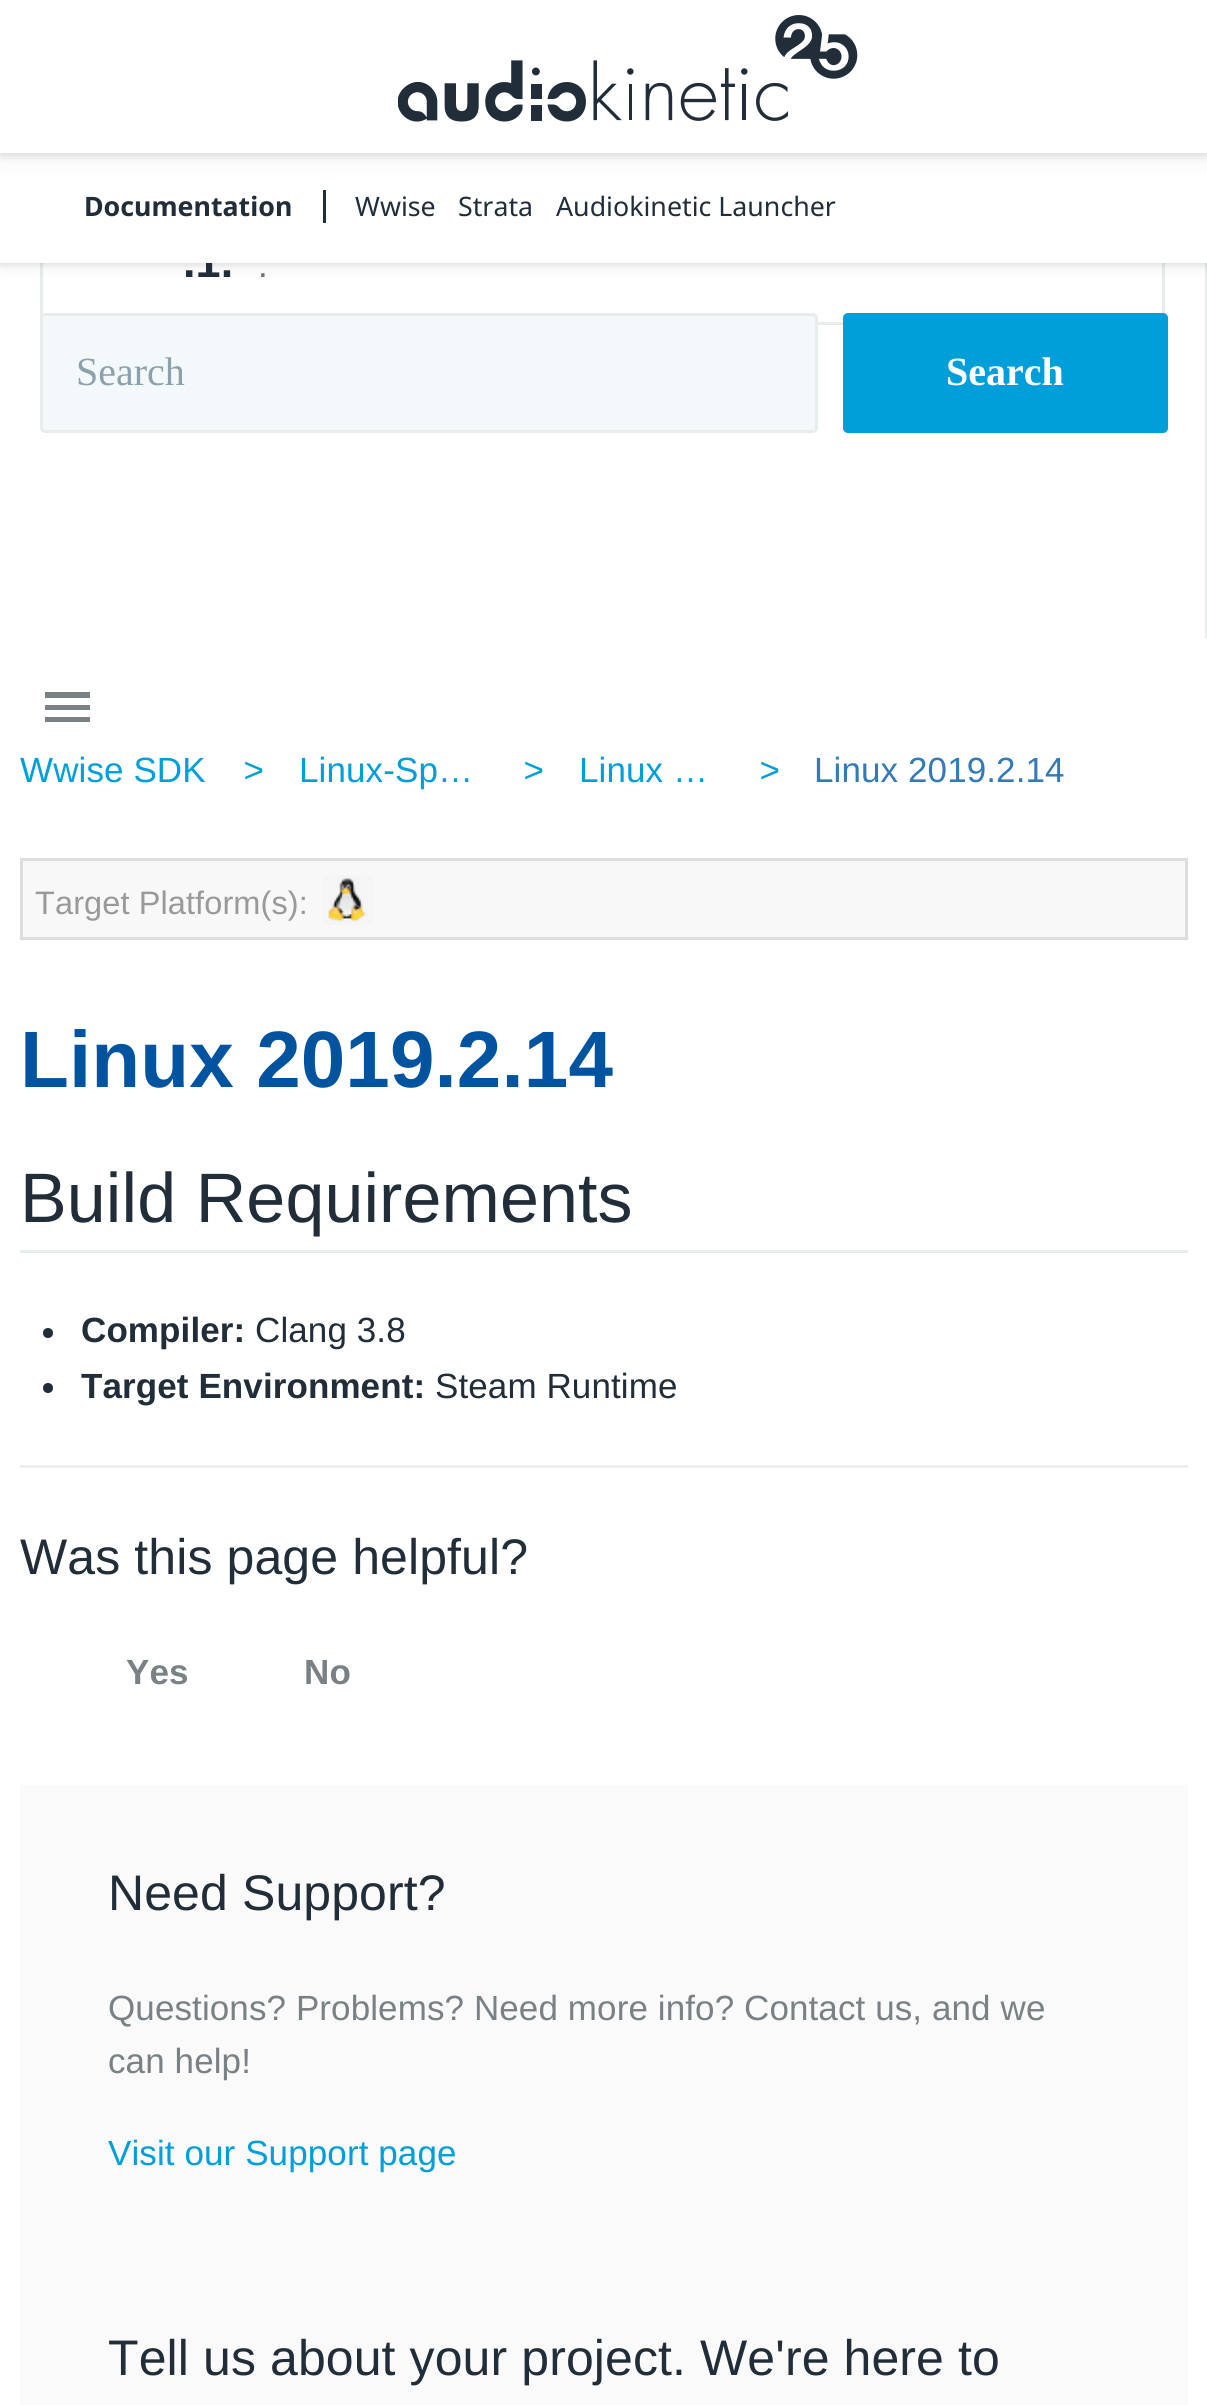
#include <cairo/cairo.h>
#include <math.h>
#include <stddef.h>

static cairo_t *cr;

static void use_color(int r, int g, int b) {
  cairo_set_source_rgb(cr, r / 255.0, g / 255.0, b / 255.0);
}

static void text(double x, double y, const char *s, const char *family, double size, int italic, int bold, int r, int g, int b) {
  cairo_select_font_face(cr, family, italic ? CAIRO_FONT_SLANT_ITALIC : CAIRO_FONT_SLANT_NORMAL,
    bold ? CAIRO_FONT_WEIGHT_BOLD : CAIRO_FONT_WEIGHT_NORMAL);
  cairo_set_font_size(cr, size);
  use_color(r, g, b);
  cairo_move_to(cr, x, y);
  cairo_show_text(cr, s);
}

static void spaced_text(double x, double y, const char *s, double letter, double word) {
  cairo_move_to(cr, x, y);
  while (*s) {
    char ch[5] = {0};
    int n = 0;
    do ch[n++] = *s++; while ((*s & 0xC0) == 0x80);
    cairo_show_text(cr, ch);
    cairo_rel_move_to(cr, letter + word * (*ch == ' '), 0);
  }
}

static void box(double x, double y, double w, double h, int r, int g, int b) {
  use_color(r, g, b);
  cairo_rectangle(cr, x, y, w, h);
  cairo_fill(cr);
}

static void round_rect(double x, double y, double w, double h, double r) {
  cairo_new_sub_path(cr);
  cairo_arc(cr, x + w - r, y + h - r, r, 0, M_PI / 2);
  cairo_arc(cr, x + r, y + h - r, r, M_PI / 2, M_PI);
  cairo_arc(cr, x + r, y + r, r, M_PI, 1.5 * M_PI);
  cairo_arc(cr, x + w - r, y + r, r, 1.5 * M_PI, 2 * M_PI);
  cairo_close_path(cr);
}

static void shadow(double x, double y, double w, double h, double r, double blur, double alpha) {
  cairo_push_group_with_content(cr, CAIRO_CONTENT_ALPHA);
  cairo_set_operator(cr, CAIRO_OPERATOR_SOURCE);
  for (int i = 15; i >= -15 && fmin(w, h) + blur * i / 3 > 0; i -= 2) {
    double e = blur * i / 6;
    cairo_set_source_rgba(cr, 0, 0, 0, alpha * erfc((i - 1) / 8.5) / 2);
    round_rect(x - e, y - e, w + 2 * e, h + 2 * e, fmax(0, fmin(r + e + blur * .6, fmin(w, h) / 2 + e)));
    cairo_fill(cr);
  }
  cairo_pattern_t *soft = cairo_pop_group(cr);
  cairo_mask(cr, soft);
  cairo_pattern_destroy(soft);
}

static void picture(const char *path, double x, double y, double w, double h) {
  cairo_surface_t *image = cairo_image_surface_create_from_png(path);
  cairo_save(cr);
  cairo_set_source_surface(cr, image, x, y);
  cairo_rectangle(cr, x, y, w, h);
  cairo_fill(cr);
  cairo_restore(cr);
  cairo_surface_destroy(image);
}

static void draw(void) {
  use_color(255, 255, 255);
  cairo_paint(cr);
  box(1205, 263, 2, 375, 231, 236, 236);
  cairo_rectangle(cr, 41.5, 206.5, 1122, 117);
  cairo_set_line_width(cr, 3);
  cairo_stroke(cr);
  use_color(0, 0, 0);
  shadow(0, 155, 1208, 110, 0, 10, 0.08);
  shadow(0, 155, 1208, 110, 0, 2.5, 0.08);
  use_color(243, 249, 250);
  round_rect(41.5, 314.5, 775, 117, 3.5);
  cairo_fill_preserve(cr);
  use_color(231, 236, 236);
  cairo_stroke(cr);
  use_color(0, 159, 218);
  round_rect(843, 313, 325, 120, 5);
  cairo_fill(cr);
  use_color(121, 129, 133);
  cairo_new_path(cr);
  cairo_move_to(cr, 45, 722);
  cairo_line_to(cr, 90, 722);
  cairo_line_to(cr, 90, 717);
  cairo_line_to(cr, 45, 717);
  cairo_close_path(cr);
  cairo_move_to(cr, 45, 710);
  cairo_line_to(cr, 90, 710);
  cairo_line_to(cr, 90, 705);
  cairo_line_to(cr, 45, 705);
  cairo_close_path(cr);
  cairo_move_to(cr, 45, 692);
  cairo_line_to(cr, 45, 698);
  cairo_line_to(cr, 90, 698);
  cairo_line_to(cr, 90, 692);
  cairo_close_path(cr);
  cairo_fill(cr);
  use_color(248, 248, 248);
  cairo_rectangle(cr, 21.5, 859.5, 1165, 79);
  cairo_fill_preserve(cr);
  use_color(221, 221, 221);
  cairo_stroke(cr);
  box(323, 875, 50, 50, 245, 245, 245);
  picture("img_02.png", 328, 877, 38, 45);
  box(20, 1250, 1168, 3, 231, 236, 236);
  use_color(33, 45, 57);
  cairo_arc(cr, 48, 1333, 5, 0, 2 * M_PI);
  cairo_fill(cr);
  cairo_arc(cr, 48, 1388, 5, 0, 2 * M_PI);
  cairo_fill(cr);
  box(20, 1465, 1168, 3, 238, 238, 238);
  box(20, 1785, 1168, 620, 250, 250, 250);
  cairo_select_font_face(cr, "Liberation Sans", CAIRO_FONT_SLANT_NORMAL, CAIRO_FONT_WEIGHT_BOLD);
  cairo_set_font_size(cr, 45);
  use_color(33, 45, 57);
  spaced_text(183, 277, ".1.", 0.1, 0);
  box(0, 153, 1207, 110, 255, 255, 255);
  use_color(0, 0, 0);
  shadow(0, 3, 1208, 152, 0, 5, 0.12);
  box(323, 190, 3, 33, 33, 45, 57);
  use_color(0, 0, 0);
  shadow(0, 5, 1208, 153, 0, 12.5, 0.06);
  box(0, 0, 1207, 153, 255, 255, 255);
  picture("img_01.png", 398, 15, 460, 107);
  text(556, 216, "Audiokinetic Launcher", "Noto Sans", 26.75, 0, 0, 33, 45, 57);
  text(458, 216, "Strata", "Noto Sans", 26.75, 0, 0, 33, 45, 57);
  text(355, 216, "Wwise", "Noto Sans", 26.75, 0, 0, 33, 45, 57);
  text(84, 216, "Documentation", "Noto Sans", 26.75, 0, 1, 33, 45, 57);
  cairo_select_font_face(cr, "Liberation Sans", CAIRO_FONT_SLANT_NORMAL, CAIRO_FONT_WEIGHT_NORMAL);
  cairo_set_font_size(cr, 35);
  use_color(108, 113, 125);
  spaced_text(258, 277, ".", 0.1, 0);
  text(76, 385, "Search", "Liberation Serif", 40, 0, 0, 140, 161, 171);
  text(946, 385, "Search", "Liberation Serif", 40, 0, 1, 255, 255, 255);
  cairo_select_font_face(cr, "Liberation Sans", CAIRO_FONT_SLANT_NORMAL, CAIRO_FONT_WEIGHT_NORMAL);
  cairo_set_font_size(cr, 35);
  use_color(0, 159, 218);
  spaced_text(20, 782, "Wwise SDK", 0.1, 0);
  cairo_select_font_face(cr, "Liberation Sans", CAIRO_FONT_SLANT_ITALIC, CAIRO_FONT_WEIGHT_NORMAL);
  spaced_text(243, 782, ">", 0.1, 0);
  cairo_select_font_face(cr, "Liberation Sans", CAIRO_FONT_SLANT_NORMAL, CAIRO_FONT_WEIGHT_NORMAL);
  spaced_text(299, 782, "Linux-Sp…", 0.1, 0);
  cairo_select_font_face(cr, "Liberation Sans", CAIRO_FONT_SLANT_ITALIC, CAIRO_FONT_WEIGHT_NORMAL);
  spaced_text(523, 782, ">", 0.1, 0);
  cairo_select_font_face(cr, "Liberation Sans", CAIRO_FONT_SLANT_NORMAL, CAIRO_FONT_WEIGHT_NORMAL);
  spaced_text(579, 782, "Linux …", 0.1, 0);
  cairo_select_font_face(cr, "Liberation Sans", CAIRO_FONT_SLANT_ITALIC, CAIRO_FONT_WEIGHT_NORMAL);
  spaced_text(759, 782, ">", 0.1, 0);
  cairo_select_font_face(cr, "Liberation Sans", CAIRO_FONT_SLANT_NORMAL, CAIRO_FONT_WEIGHT_NORMAL);
  use_color(51, 122, 183);
  spaced_text(814, 782, "Linux 2019.2.14", 0.1, 0);
  cairo_set_font_size(cr, 32.5);
  use_color(153, 153, 153);
  spaced_text(35, 914, "Target Platform(s):", 0.1, 0);
  cairo_select_font_face(cr, "Liberation Sans", CAIRO_FONT_SLANT_NORMAL, CAIRO_FONT_WEIGHT_BOLD);
  cairo_set_font_size(cr, 80);
  use_color(0, 84, 159);
  spaced_text(20, 1087, "Linux 2019.2.14", 0.1, 0);
  cairo_select_font_face(cr, "Liberation Sans", CAIRO_FONT_SLANT_NORMAL, CAIRO_FONT_WEIGHT_NORMAL);
  cairo_set_font_size(cr, 70);
  use_color(33, 45, 57);
  spaced_text(20, 1222, "Build Requirements", 0.1, 0);
  cairo_select_font_face(cr, "Liberation Sans", CAIRO_FONT_SLANT_NORMAL, CAIRO_FONT_WEIGHT_BOLD);
  cairo_set_font_size(cr, 35);
  spaced_text(81, 1342, "Compiler:", 0.1, 0);
  cairo_select_font_face(cr, "Liberation Sans", CAIRO_FONT_SLANT_NORMAL, CAIRO_FONT_WEIGHT_NORMAL);
  spaced_text(255, 1342, "Clang 3.8", 0.1, 0);
  cairo_select_font_face(cr, "Liberation Sans", CAIRO_FONT_SLANT_NORMAL, CAIRO_FONT_WEIGHT_BOLD);
  spaced_text(81, 1398, "Target Environment:", 0.1, 0);
  cairo_select_font_face(cr, "Liberation Sans", CAIRO_FONT_SLANT_NORMAL, CAIRO_FONT_WEIGHT_NORMAL);
  spaced_text(435, 1398, "Steam Runtime", 0.1, 0);
  cairo_set_font_size(cr, 50);
  spaced_text(20, 1574, "Was this page helpful?", 0.1, 0);
  cairo_select_font_face(cr, "Liberation Sans", CAIRO_FONT_SLANT_NORMAL, CAIRO_FONT_WEIGHT_BOLD);
  cairo_set_font_size(cr, 35);
  use_color(121, 129, 133);
  spaced_text(126, 1684, "Yes", 0.1, 0);
  spaced_text(304, 1684, "No", 0.1, 0);
  cairo_select_font_face(cr, "Liberation Sans", CAIRO_FONT_SLANT_NORMAL, CAIRO_FONT_WEIGHT_NORMAL);
  cairo_set_font_size(cr, 50);
  use_color(33, 45, 57);
  spaced_text(108, 1910, "Need Support?", 0.1, 0);
  cairo_set_font_size(cr, 35);
  use_color(121, 129, 133);
  spaced_text(108, 2020, "Questions? Problems? Need more info? Contact us, and we", 0.1, 0);
  spaced_text(108, 2073, "can help!", 0.1, 0);
  use_color(0, 159, 218);
  spaced_text(108, 2165, "Visit our Support page", 0.1, 0);
  cairo_set_font_size(cr, 50);
  use_color(33, 45, 57);
  spaced_text(108, 2375, "Tell us about your project. We're here to", 0.1, 0);
}

int main(void) {
  cairo_surface_t *surface = cairo_image_surface_create(CAIRO_FORMAT_RGB24, 1207, 2405);
  cr = cairo_create(surface);
  cairo_font_options_t *options = cairo_font_options_create();
  cairo_font_options_set_hint_metrics(options, CAIRO_HINT_METRICS_OFF);
  cairo_font_options_set_hint_style(options, CAIRO_HINT_STYLE_NONE);
  cairo_set_font_options(cr, options);
  cairo_set_miter_limit(cr, 4);
  draw();
  cairo_surface_write_to_png(surface, "out.png");
  cairo_font_options_destroy(options);
  cairo_destroy(cr);
  cairo_surface_destroy(surface);
  return 0;
}
